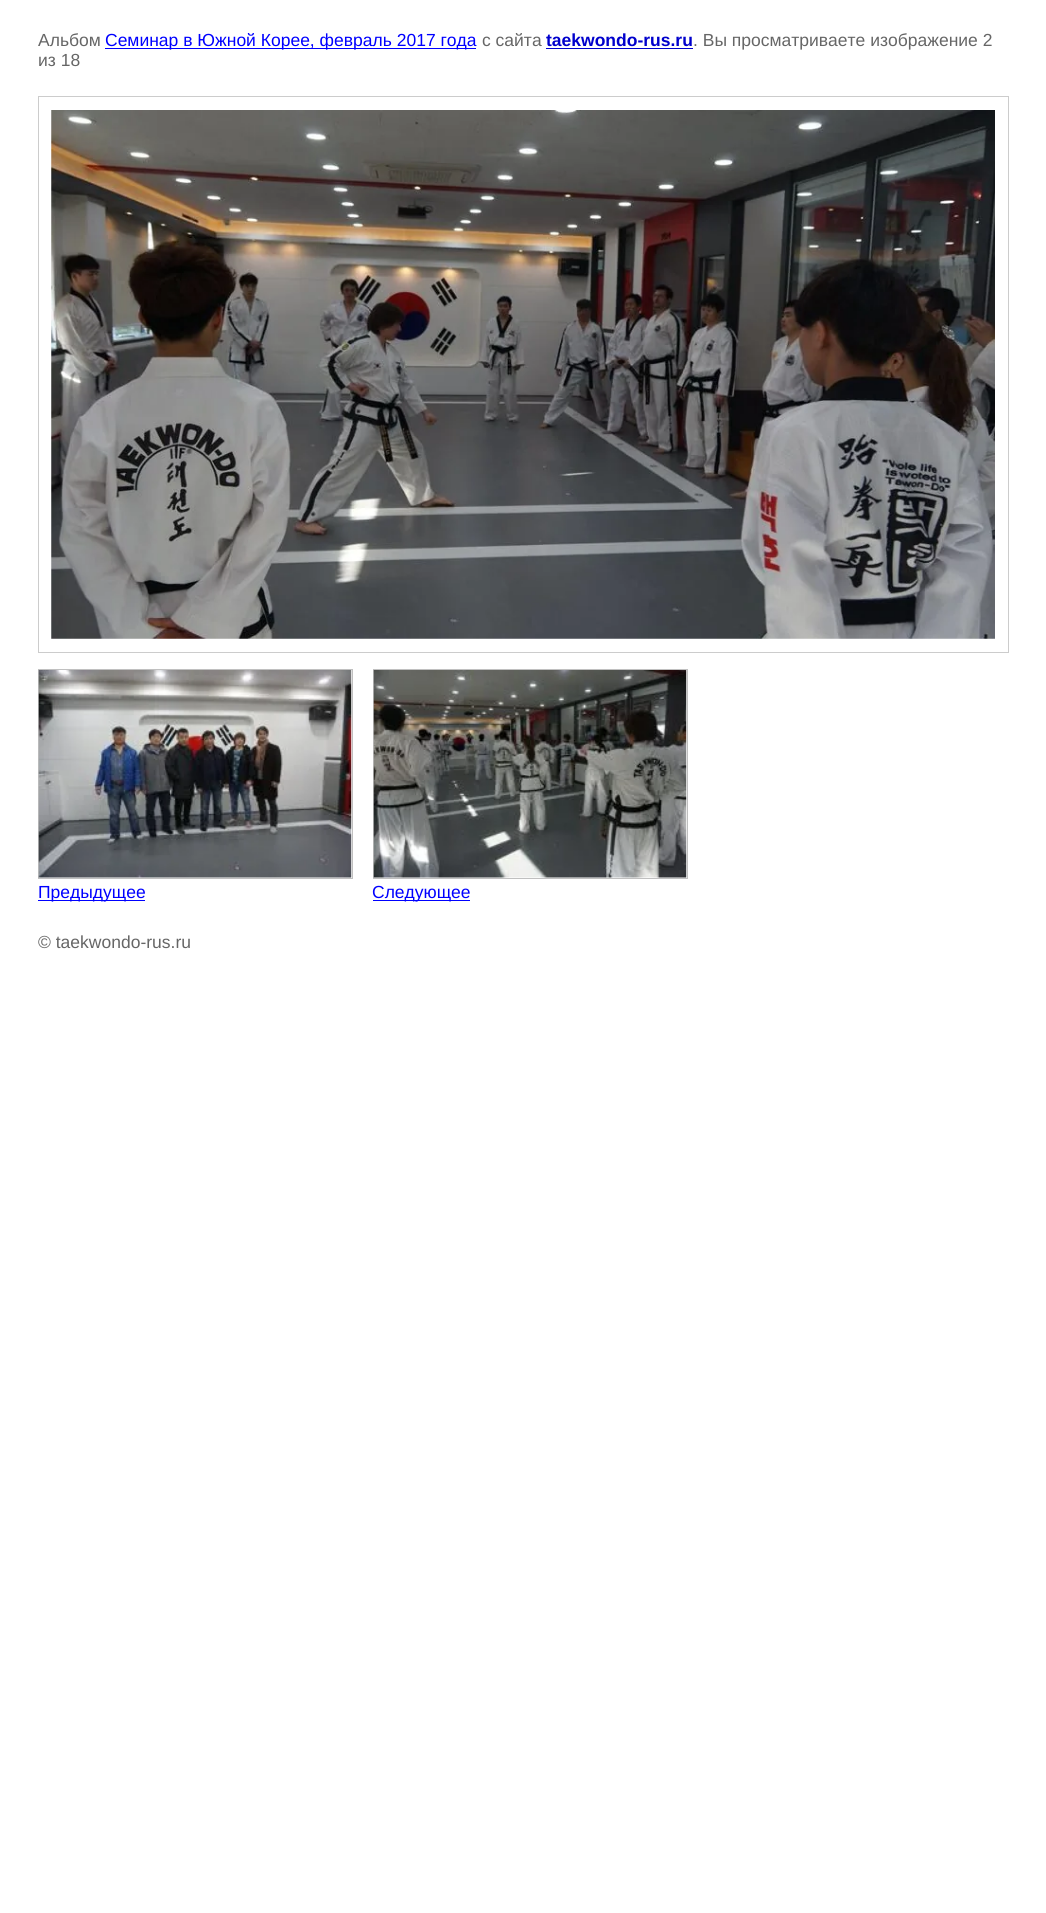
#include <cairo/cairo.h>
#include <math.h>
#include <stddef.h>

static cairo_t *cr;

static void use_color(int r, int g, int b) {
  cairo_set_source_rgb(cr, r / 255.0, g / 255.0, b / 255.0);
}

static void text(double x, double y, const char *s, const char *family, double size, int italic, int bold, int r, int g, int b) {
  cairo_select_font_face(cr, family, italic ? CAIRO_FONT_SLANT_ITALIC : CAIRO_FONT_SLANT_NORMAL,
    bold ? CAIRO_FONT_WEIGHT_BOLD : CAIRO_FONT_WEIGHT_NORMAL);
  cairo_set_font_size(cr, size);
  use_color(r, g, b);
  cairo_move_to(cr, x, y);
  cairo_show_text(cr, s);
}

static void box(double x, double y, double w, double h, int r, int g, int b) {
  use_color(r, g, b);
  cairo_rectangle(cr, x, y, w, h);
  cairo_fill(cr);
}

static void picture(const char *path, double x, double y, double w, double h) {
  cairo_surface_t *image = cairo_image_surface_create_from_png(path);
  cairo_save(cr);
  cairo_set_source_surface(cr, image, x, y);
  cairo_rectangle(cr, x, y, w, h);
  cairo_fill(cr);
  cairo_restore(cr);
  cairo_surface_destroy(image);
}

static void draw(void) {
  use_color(255, 255, 255);
  cairo_paint(cr);
  box(105, 48, 371, 1, 0, 0, 255);
  box(546, 48, 147, 1, 0, 0, 204);
  cairo_rectangle(cr, 38.5, 96.5, 970, 556);
  use_color(204, 204, 204);
  cairo_set_line_width(cr, 1);
  cairo_stroke(cr);
  picture("img_01.png", 51, 110, 944, 529);
  cairo_rectangle(cr, 38.5, 669.5, 314, 209);
  use_color(192, 192, 192);
  cairo_stroke(cr);
  picture("img_02.png", 38, 670, 314, 208);
  box(38, 900, 107, 1, 0, 0, 255);
  cairo_rectangle(cr, 373.5, 669.5, 314, 209);
  use_color(192, 192, 192);
  cairo_stroke(cr);
  picture("img_03.png", 373, 670, 314, 208);
  box(373, 900, 97, 1, 0, 0, 255);
  text(38, 46, "Альбом", "Liberation Sans", 17.5, 0, 0, 102, 102, 102);
  text(105, 46, "Семинар в Южной Корее, февраль 2017 года", "Liberation Sans", 17.5, 0, 0, 0, 0, 255);
  text(482, 46, "с сайта", "Liberation Sans", 17.5, 0, 0, 102, 102, 102);
  text(546, 46, "taekwondo-rus.ru", "Liberation Sans", 17.5, 0, 1, 0, 0, 204);
  text(693, 46, ". Вы просматриваете изображение 2", "Liberation Sans", 17.5, 0, 0, 102, 102, 102);
  text(38, 66, "из 18", "Liberation Sans", 17.5, 0, 0, 102, 102, 102);
  text(38, 898, "Предыдущее", "Liberation Sans", 17.5, 0, 0, 0, 0, 255);
  text(372, 898, "Следующее", "Liberation Sans", 17.5, 0, 0, 0, 0, 255);
  text(38, 948, "© taekwondo-rus.ru", "Liberation Sans", 17.5, 0, 0, 102, 102, 102);
}

int main(void) {
  cairo_surface_t *surface = cairo_image_surface_create(CAIRO_FORMAT_RGB24, 1046, 1913);
  cr = cairo_create(surface);
  cairo_font_options_t *options = cairo_font_options_create();
  cairo_font_options_set_hint_metrics(options, CAIRO_HINT_METRICS_OFF);
  cairo_font_options_set_hint_style(options, CAIRO_HINT_STYLE_NONE);
  cairo_set_font_options(cr, options);
  cairo_set_miter_limit(cr, 4);
  draw();
  cairo_surface_write_to_png(surface, "out.png");
  cairo_font_options_destroy(options);
  cairo_destroy(cr);
  cairo_surface_destroy(surface);
  return 0;
}
